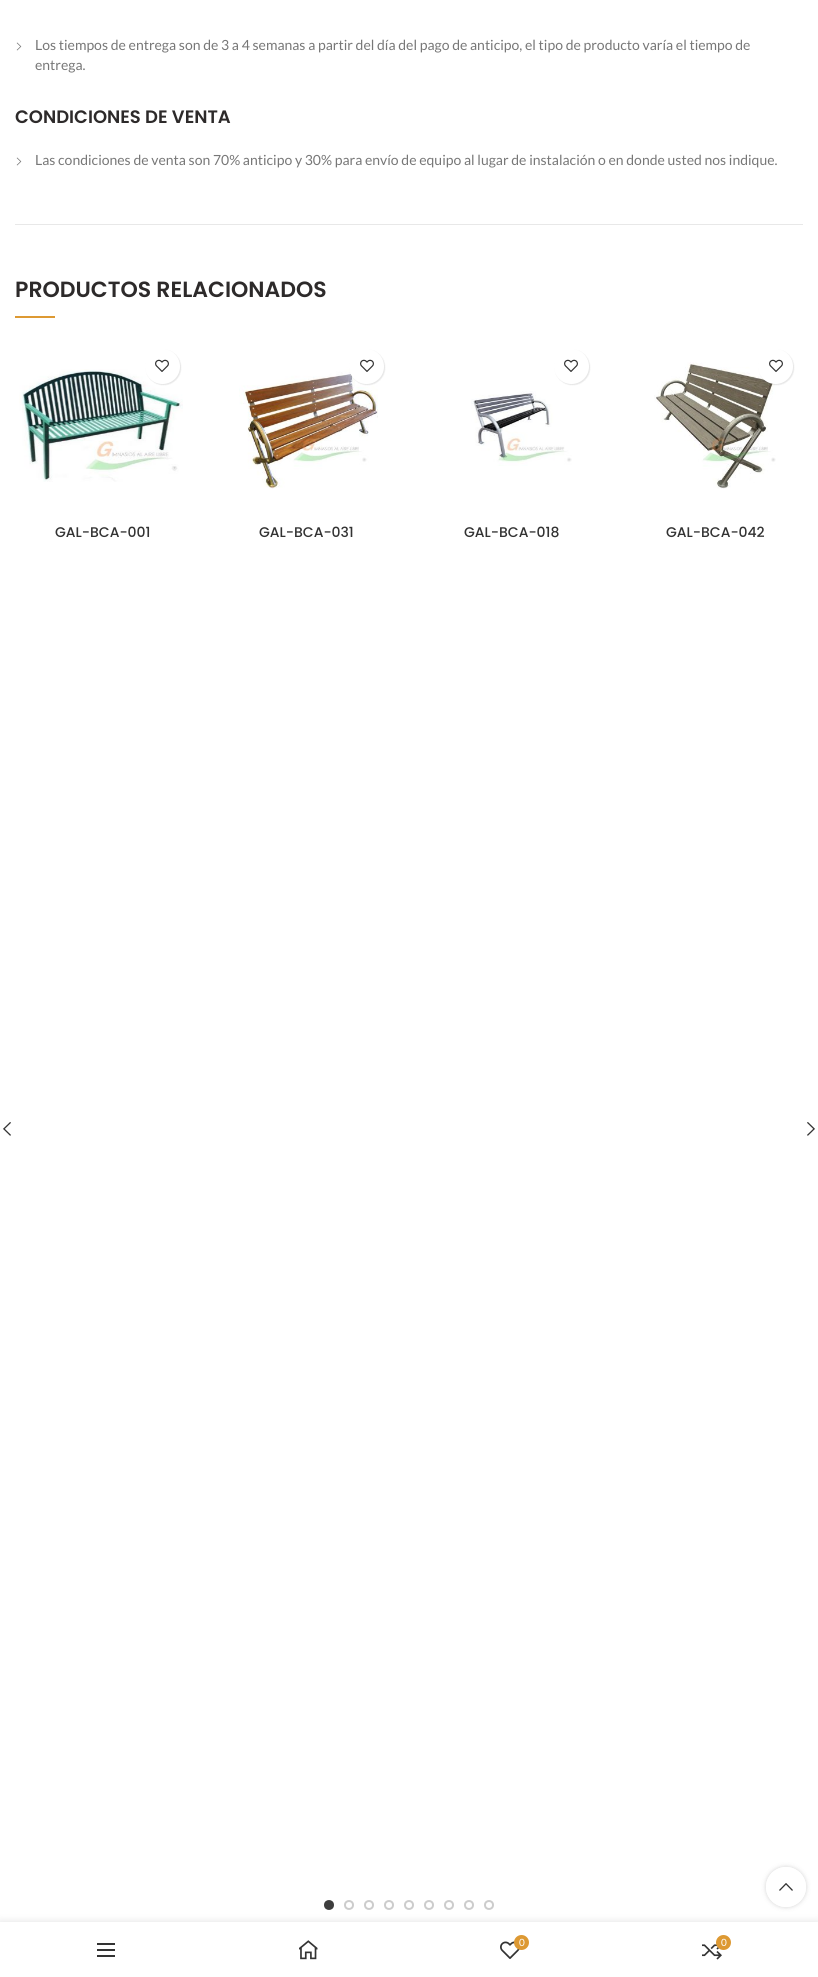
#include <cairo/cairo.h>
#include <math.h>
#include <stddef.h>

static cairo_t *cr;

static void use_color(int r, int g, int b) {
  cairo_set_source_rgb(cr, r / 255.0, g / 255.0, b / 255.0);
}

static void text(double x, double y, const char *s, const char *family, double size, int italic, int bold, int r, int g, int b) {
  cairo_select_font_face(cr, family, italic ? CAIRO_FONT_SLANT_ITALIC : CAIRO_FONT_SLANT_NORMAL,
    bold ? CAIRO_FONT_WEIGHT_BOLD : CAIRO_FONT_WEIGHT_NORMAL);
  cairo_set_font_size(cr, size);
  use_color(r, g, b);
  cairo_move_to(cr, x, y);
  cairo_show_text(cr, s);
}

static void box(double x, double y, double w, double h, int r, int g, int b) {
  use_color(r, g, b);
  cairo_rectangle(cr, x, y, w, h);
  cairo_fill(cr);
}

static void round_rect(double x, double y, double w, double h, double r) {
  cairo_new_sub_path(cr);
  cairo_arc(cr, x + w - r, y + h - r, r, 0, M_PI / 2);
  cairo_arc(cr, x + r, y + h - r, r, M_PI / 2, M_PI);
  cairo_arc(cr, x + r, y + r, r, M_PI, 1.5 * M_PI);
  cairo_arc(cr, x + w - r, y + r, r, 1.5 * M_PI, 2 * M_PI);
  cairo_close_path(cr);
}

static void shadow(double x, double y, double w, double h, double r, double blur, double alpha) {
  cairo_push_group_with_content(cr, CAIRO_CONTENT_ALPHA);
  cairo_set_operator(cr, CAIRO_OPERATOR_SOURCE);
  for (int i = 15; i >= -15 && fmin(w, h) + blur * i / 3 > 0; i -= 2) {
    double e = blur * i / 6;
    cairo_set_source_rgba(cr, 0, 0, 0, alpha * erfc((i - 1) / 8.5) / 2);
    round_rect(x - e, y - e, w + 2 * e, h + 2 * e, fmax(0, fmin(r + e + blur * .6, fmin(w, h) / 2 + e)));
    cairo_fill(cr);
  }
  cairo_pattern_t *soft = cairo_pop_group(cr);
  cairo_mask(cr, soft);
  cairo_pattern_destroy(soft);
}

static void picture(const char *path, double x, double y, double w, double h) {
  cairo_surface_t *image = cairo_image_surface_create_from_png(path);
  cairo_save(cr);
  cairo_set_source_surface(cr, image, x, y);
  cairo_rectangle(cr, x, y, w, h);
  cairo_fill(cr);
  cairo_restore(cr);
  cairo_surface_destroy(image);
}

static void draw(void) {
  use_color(255, 255, 255);
  cairo_paint(cr);
  box(15, 224, 788, 1, 232, 232, 232);
  picture("img_01.png", 16, 42, 6, 9);
  picture("img_01.png", 16, 157, 6, 9);
  box(15, 316, 40, 2, 221, 153, 51);
  picture("img_03.png", 19, 369, 164, 113);
  use_color(0, 0, 0);
  shadow(146, 350, 35, 35, 17.5, 0.5, 0.1);
  use_color(255, 255, 255);
  cairo_arc(cr, 162.5, 366.5, 17.5, 0, 2 * M_PI);
  cairo_fill(cr);
  picture("img_02.png", 155, 359, 14, 13);
  picture("img_04.png", 239, 367, 139, 122);
  use_color(0, 0, 0);
  shadow(350, 350, 35, 35, 17.5, 0.5, 0.1);
  use_color(255, 255, 255);
  cairo_arc(cr, 366.5, 366.5, 17.5, 0, 2 * M_PI);
  cairo_fill(cr);
  picture("img_02.png", 360, 359, 14, 13);
  use_color(0, 0, 0);
  shadow(555, 350, 35, 35, 17.5, 0.5, 0.1);
  use_color(255, 255, 255);
  cairo_arc(cr, 571.5, 366.5, 17.5, 0, 2 * M_PI);
  cairo_fill(cr);
  picture("img_02.png", 564, 359, 14, 13);
  picture("img_05.png", 471, 391, 101, 75);
  picture("img_06.png", 654, 362, 122, 127);
  use_color(0, 0, 0);
  shadow(759, 350, 35, 35, 17.5, 0.5, 0.1);
  use_color(255, 255, 255);
  cairo_arc(cr, 775.5, 366.5, 17.5, 0, 2 * M_PI);
  cairo_fill(cr);
  picture("img_02.png", 769, 359, 14, 13);
  picture("img_07.png", 3, 1122, 8, 14);
  picture("img_08.png", 807, 1122, 8, 14);
  use_color(62, 62, 62);
  cairo_arc(cr, 329, 1905, 4, 0, 2 * M_PI);
  cairo_fill_preserve(cr);
  cairo_stroke(cr);
  cairo_arc(cr, 349, 1905, 4, 0, 2 * M_PI);
  use_color(204, 204, 204);
  cairo_stroke(cr);
  cairo_arc(cr, 369, 1905, 4, 0, 2 * M_PI);
  cairo_stroke(cr);
  cairo_arc(cr, 389, 1905, 4, 0, 2 * M_PI);
  cairo_stroke(cr);
  cairo_arc(cr, 409, 1905, 4, 0, 2 * M_PI);
  cairo_stroke(cr);
  cairo_arc(cr, 429, 1905, 4, 0, 2 * M_PI);
  cairo_stroke(cr);
  cairo_arc(cr, 449, 1905, 4, 0, 2 * M_PI);
  cairo_stroke(cr);
  cairo_arc(cr, 469, 1905, 4, 0, 2 * M_PI);
  cairo_stroke(cr);
  cairo_arc(cr, 489, 1905, 4, 0, 2 * M_PI);
  cairo_stroke(cr);
  cairo_save(cr);
  cairo_set_fill_rule(cr, CAIRO_FILL_RULE_EVEN_ODD);
  cairo_new_path(cr);
  cairo_move_to(cr, 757, 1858);
  cairo_line_to(cr, 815, 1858);
  cairo_line_to(cr, 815, 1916);
  cairo_line_to(cr, 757, 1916);
  cairo_close_path(cr);
  cairo_move_to(cr, 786, 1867);
  cairo_curve_to(cr, 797, 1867, 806, 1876, 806, 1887);
  cairo_curve_to(cr, 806, 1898, 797, 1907, 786, 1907);
  cairo_curve_to(cr, 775, 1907, 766, 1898, 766, 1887);
  cairo_curve_to(cr, 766, 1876, 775, 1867, 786, 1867);
  cairo_close_path(cr);
  cairo_clip(cr);
  use_color(0, 0, 0);
  shadow(766, 1867, 40, 40, 20, 2.5, 0.17);
  cairo_restore(cr);
  cairo_set_source_rgba(cr, 1, 1, 1, 0.9);
  cairo_arc(cr, 786, 1887, 20, 0, 2 * M_PI);
  cairo_fill(cr);
  picture("img_09.png", 779, 1883, 14, 8);
  use_color(0, 0, 0);
  shadow(0, 1922, 818, 55, 0, 4.5, 0.12);
  box(0, 1922, 818, 55, 255, 255, 255);
  box(97, 1949, 18, 2, 51, 51, 51);
  box(97, 1943, 18, 2, 51, 51, 51);
  box(97, 1955, 18, 2, 51, 51, 51);
  picture("img_10.png", 299, 1940, 19, 20);
  picture("img_11.png", 500, 1941, 20, 18);
  use_color(221, 153, 51);
  cairo_arc(cr, 521.5, 1942.5, 7.5, 0, 2 * M_PI);
  cairo_fill(cr);
  picture("img_12.png", 702, 1941, 20, 19);
  cairo_arc(cr, 723.5, 1942.5, 7.5, 0, 2 * M_PI);
  cairo_fill(cr);
  text(35, 50, "Los tiempos de entrega son de 3 a 4 semanas a partir del día del pago de anticipo, el tipo de producto varía el tiempo de", "Lato", 14, 0, 0, 119, 119, 119);
  text(35, 70, "entrega.", "Lato", 14, 0, 0, 119, 119, 119);
  text(15, 123, "CONDICIONES DE VENTA", "Poppins SemiBold", 18, 0, 0, 45, 42, 42);
  text(35, 165, "Las condiciones de venta son 70% anticipo y 30% para envío de equipo al lugar de instalación o en donde usted nos indique.", "Lato", 14, 0, 0, 119, 119, 119);
  text(15, 297, "PRODUCTOS RELACIONADOS", "Poppins SemiBold", 22, 0, 0, 45, 42, 42);
  text(55, 537, "GAL-BCA-001", "Poppins Medium", 14, 0, 0, 51, 51, 51);
  text(259, 537, "GAL-BCA-031", "Poppins Medium", 14, 0, 0, 51, 51, 51);
  text(464, 537, "GAL-BCA-018", "Poppins Medium", 14, 0, 0, 51, 51, 51);
  text(666, 537, "GAL-BCA-042", "Poppins Medium", 14, 0, 0, 51, 51, 51);
  text(519, 1946, "0", "Lato", 10, 0, 0, 255, 255, 255);
  text(721, 1946, "0", "Lato", 10, 0, 0, 255, 255, 255);
}

int main(void) {
  cairo_surface_t *surface = cairo_image_surface_create(CAIRO_FORMAT_RGB24, 818, 1977);
  cr = cairo_create(surface);
  cairo_font_options_t *options = cairo_font_options_create();
  cairo_font_options_set_hint_metrics(options, CAIRO_HINT_METRICS_OFF);
  cairo_font_options_set_hint_style(options, CAIRO_HINT_STYLE_NONE);
  cairo_set_font_options(cr, options);
  cairo_set_miter_limit(cr, 4);
  draw();
  cairo_surface_write_to_png(surface, "out.png");
  cairo_font_options_destroy(options);
  cairo_destroy(cr);
  cairo_surface_destroy(surface);
  return 0;
}
